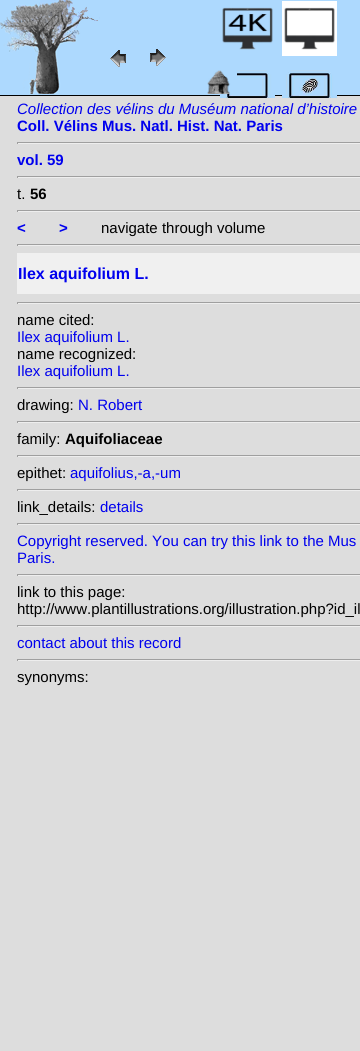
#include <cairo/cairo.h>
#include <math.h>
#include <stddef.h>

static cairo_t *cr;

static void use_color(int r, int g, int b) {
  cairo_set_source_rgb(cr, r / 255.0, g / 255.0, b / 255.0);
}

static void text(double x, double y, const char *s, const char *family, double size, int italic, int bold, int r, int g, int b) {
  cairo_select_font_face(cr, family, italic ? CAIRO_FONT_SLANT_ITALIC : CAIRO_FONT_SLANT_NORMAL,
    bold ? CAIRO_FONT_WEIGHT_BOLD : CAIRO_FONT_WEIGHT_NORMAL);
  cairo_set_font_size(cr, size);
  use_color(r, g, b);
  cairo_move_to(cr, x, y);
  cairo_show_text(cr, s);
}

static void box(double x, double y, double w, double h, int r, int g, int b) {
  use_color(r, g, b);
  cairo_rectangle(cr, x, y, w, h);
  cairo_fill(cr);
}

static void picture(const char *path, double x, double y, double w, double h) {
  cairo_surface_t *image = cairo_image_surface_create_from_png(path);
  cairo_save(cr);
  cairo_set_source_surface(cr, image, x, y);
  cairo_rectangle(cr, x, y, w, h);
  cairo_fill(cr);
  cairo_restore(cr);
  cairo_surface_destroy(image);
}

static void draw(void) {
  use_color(221, 221, 221);
  cairo_paint(cr);
  box(0, 0, 360, 95, 173, 217, 254);
  box(0, 95, 360, 1, 0, 0, 0);
  picture("img_01.png", 0, 0, 100, 94);
  picture("img_02.png", 110, 50, 16, 17);
  picture("img_03.png", 150, 49, 16, 17);
  picture("img_04.png", 222, 7, 51, 43);
  picture("img_05.png", 282, 1, 55, 55);
  picture("img_06.png", 220, 70, 55, 28);
  picture("img_07.png", 282, 70, 55, 28);
  picture("img_08.png", 207, 70, 30, 24);
  box(17, 142, 343, 1, 159, 159, 159);
  box(17, 143, 343, 1, 238, 238, 238);
  box(17, 142, 1, 2, 159, 159, 159);
  box(17, 176, 343, 1, 159, 159, 159);
  box(17, 177, 343, 1, 238, 238, 238);
  box(17, 176, 1, 2, 159, 159, 159);
  box(17, 210, 343, 1, 159, 159, 159);
  box(17, 211, 343, 1, 238, 238, 238);
  box(17, 210, 1, 2, 159, 159, 159);
  box(17, 244, 343, 1, 159, 159, 159);
  box(17, 245, 343, 1, 238, 238, 238);
  box(17, 244, 1, 2, 159, 159, 159);
  box(17, 253, 343, 41, 240, 240, 240);
  box(17, 302, 343, 1, 159, 159, 159);
  box(17, 303, 343, 1, 238, 238, 238);
  box(17, 302, 1, 2, 159, 159, 159);
  box(17, 387, 343, 1, 159, 159, 159);
  box(17, 388, 343, 1, 238, 238, 238);
  box(17, 387, 1, 2, 159, 159, 159);
  box(17, 421, 343, 1, 159, 159, 159);
  box(17, 422, 343, 1, 238, 238, 238);
  box(17, 421, 1, 2, 159, 159, 159);
  box(17, 455, 343, 1, 159, 159, 159);
  box(17, 456, 343, 1, 238, 238, 238);
  box(17, 455, 1, 2, 159, 159, 159);
  box(17, 489, 343, 1, 159, 159, 159);
  box(17, 490, 343, 1, 238, 238, 238);
  box(17, 489, 1, 2, 159, 159, 159);
  box(17, 523, 343, 1, 159, 159, 159);
  box(17, 524, 343, 1, 238, 238, 238);
  box(17, 523, 1, 2, 159, 159, 159);
  box(17, 574, 343, 1, 159, 159, 159);
  box(17, 575, 343, 1, 238, 238, 238);
  box(17, 574, 1, 2, 159, 159, 159);
  box(17, 625, 343, 1, 159, 159, 159);
  box(17, 626, 343, 1, 238, 238, 238);
  box(17, 625, 1, 2, 159, 159, 159);
  box(17, 659, 343, 1, 159, 159, 159);
  box(17, 660, 343, 1, 238, 238, 238);
  box(17, 659, 1, 2, 159, 159, 159);
  text(17, 114, "Collection des vélins du Muséum national d’histoire", "Liberation Sans", 15, 1, 0, 0, 0, 238);
  text(17, 131, "Coll. Vélins Mus. Natl. Hist. Nat. Paris", "Liberation Sans", 15, 0, 1, 0, 0, 238);
  text(17, 165, "vol. 59", "Liberation Sans", 15, 0, 1, 0, 0, 238);
  text(17, 199, "t.", "Liberation Sans", 15, 0, 0, 0, 0, 0);
  text(30, 199, "56", "Liberation Sans", 15, 0, 1, 0, 0, 0);
  text(17, 233, "<", "Liberation Sans", 15, 0, 1, 0, 0, 238);
  text(59, 233, ">", "Liberation Sans", 15, 0, 1, 0, 0, 238);
  text(101, 233, "navigate through volume", "Liberation Sans", 15, 0, 0, 0, 0, 0);
  text(18, 279, "Ilex aquifolium L.", "Liberation Sans", 16, 0, 1, 0, 0, 238);
  text(17, 325, "name cited:", "Liberation Sans", 15, 0, 0, 0, 0, 0);
  text(17, 342, "Ilex aquifolium L.", "Liberation Sans", 15, 0, 0, 0, 0, 238);
  text(17, 359, "name recognized:", "Liberation Sans", 15, 0, 0, 0, 0, 0);
  text(17, 376, "Ilex aquifolium L.", "Liberation Sans", 15, 0, 0, 0, 0, 238);
  text(17, 410, "drawing:", "Liberation Sans", 15, 0, 0, 0, 0, 0);
  text(78, 410, "N. Robert", "Liberation Sans", 15, 0, 0, 0, 0, 238);
  text(17, 444, "family:", "Liberation Sans", 15, 0, 0, 0, 0, 0);
  text(65, 444, "Aquifoliaceae", "Liberation Sans", 15, 0, 1, 0, 0, 0);
  text(17, 478, "epithet:", "Liberation Sans", 15, 0, 0, 0, 0, 0);
  text(70, 478, "aquifolius,-a,-um", "Liberation Sans", 15, 0, 0, 0, 0, 238);
  text(17, 512, "link_details:", "Liberation Sans", 15, 0, 0, 0, 0, 0);
  text(100, 512, "details", "Liberation Sans", 15, 0, 0, 0, 0, 238);
  text(17, 546, "Copyright reserved. You can try this link to the Mus", "Liberation Sans", 15, 0, 0, 0, 0, 238);
  text(17, 563, "Paris.", "Liberation Sans", 15, 0, 0, 0, 0, 238);
  text(17, 597, "link to this page:", "Liberation Sans", 15, 0, 0, 0, 0, 0);
  text(17, 614, "http://www.plantillustrations.org/illustration.php?id_il", "Liberation Sans", 15, 0, 0, 0, 0, 0);
  text(17, 648, "contact about this record", "Liberation Sans", 15, 0, 0, 0, 0, 238);
  text(17, 682, "synonyms:", "Liberation Sans", 15, 0, 0, 0, 0, 0);
}

int main(void) {
  cairo_surface_t *surface = cairo_image_surface_create(CAIRO_FORMAT_RGB24, 360, 1051);
  cr = cairo_create(surface);
  cairo_font_options_t *options = cairo_font_options_create();
  cairo_font_options_set_hint_metrics(options, CAIRO_HINT_METRICS_OFF);
  cairo_font_options_set_hint_style(options, CAIRO_HINT_STYLE_NONE);
  cairo_set_font_options(cr, options);
  cairo_set_miter_limit(cr, 4);
  draw();
  cairo_surface_write_to_png(surface, "out.png");
  cairo_font_options_destroy(options);
  cairo_destroy(cr);
  cairo_surface_destroy(surface);
  return 0;
}
